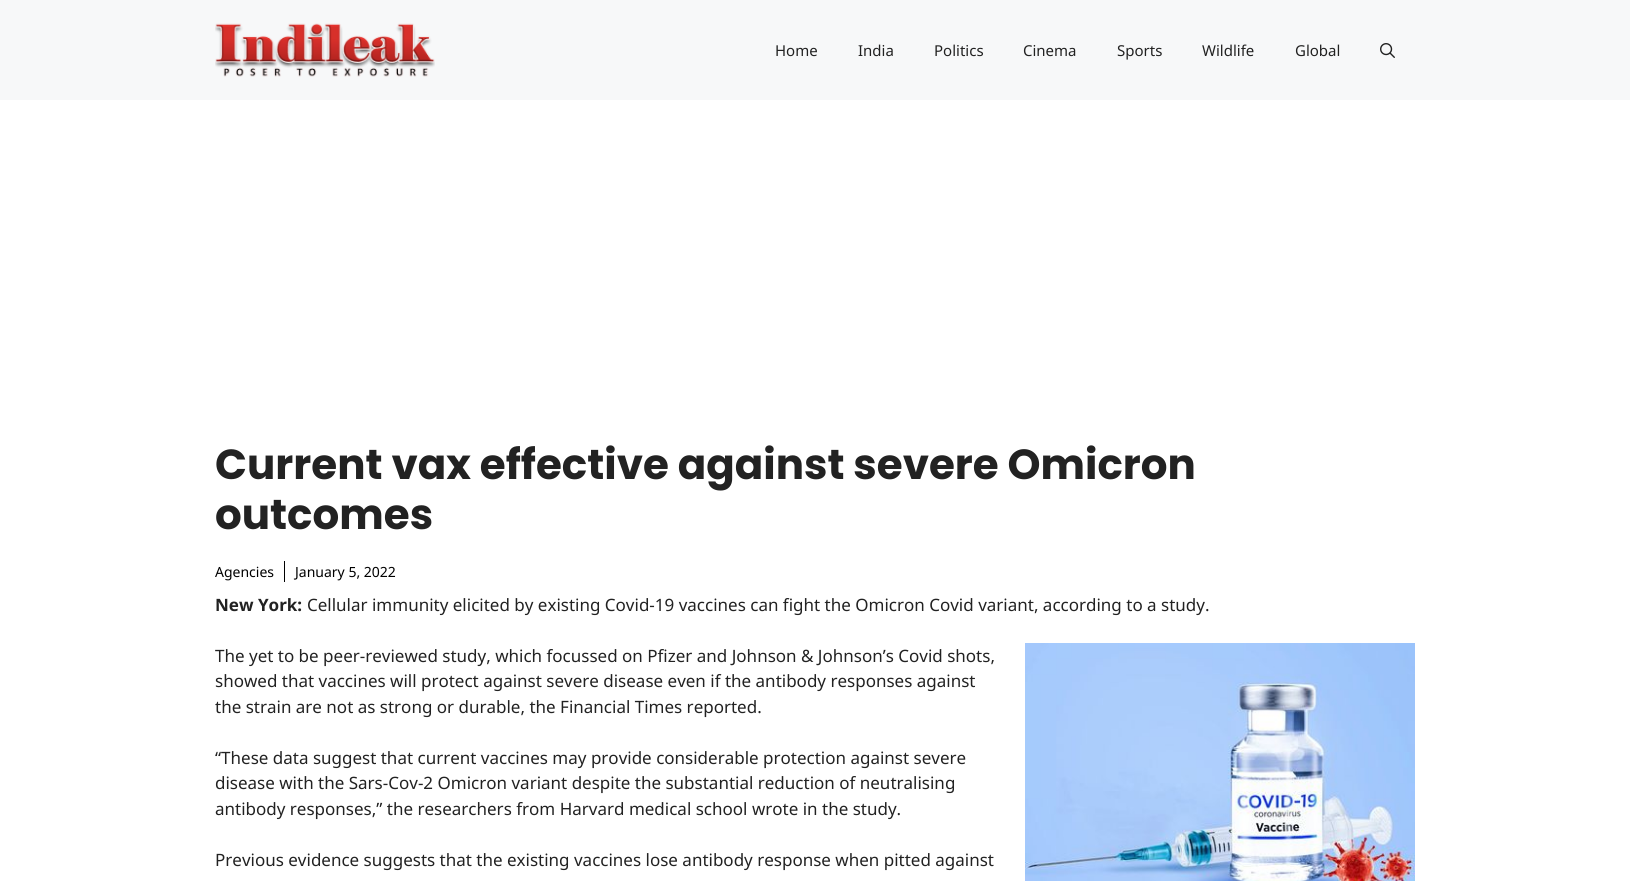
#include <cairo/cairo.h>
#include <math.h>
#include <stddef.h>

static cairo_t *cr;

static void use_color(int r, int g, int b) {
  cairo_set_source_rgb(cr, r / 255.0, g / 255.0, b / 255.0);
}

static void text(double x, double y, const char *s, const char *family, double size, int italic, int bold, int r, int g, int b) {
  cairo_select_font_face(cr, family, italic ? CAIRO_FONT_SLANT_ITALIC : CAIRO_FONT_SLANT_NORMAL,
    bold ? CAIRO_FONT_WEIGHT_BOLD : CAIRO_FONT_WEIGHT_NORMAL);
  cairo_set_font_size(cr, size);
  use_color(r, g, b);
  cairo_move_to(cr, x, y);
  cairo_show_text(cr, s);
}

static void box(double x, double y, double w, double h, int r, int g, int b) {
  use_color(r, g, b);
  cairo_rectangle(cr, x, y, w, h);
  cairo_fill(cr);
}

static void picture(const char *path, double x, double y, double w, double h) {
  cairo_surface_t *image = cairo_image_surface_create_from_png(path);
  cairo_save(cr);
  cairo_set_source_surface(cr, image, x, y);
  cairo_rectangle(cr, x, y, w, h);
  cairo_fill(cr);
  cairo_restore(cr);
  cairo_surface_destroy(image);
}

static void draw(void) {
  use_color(255, 255, 255);
  cairo_paint(cr);
  box(0, 0, 1630, 100, 247, 248, 249);
  picture("img_01.png", 215, 23, 220, 54);
  picture("img_02.png", 1380, 43, 15, 15);
  box(284, 561, 1, 21, 0, 0, 0);
  picture("img_03.png", 1025, 643, 390, 238);
  text(775, 56, "Home", "Noto Sans", 15, 0, 0, 34, 34, 34);
  text(858, 56, "India", "Noto Sans", 15, 0, 0, 34, 34, 34);
  text(934, 56, "Politics", "Noto Sans", 15, 0, 0, 34, 34, 34);
  text(1023, 56, "Cinema", "Noto Sans", 15, 0, 0, 34, 34, 34);
  text(1117, 56, "Sports", "Noto Sans", 15, 0, 0, 34, 34, 34);
  text(1202, 56, "Wildlife", "Noto Sans", 15, 0, 0, 34, 34, 34);
  text(1295, 56, "Global", "Noto Sans", 15, 0, 0, 34, 34, 34);
  text(215, 479, "Current vax effective against severe Omicron", "Poppins", 42, 0, 1, 34, 34, 34);
  text(215, 529, "outcomes", "Poppins", 42, 0, 1, 34, 34, 34);
  text(215, 577, "Agencies", "Noto Sans", 14, 0, 0, 0, 0, 0);
  text(295, 577, "January 5, 2022", "Noto Sans", 14, 0, 0, 0, 0, 0);
  text(215, 611, "New York:", "Noto Sans", 17, 0, 1, 34, 34, 34);
  text(307, 611, "Cellular immunity elicited by existing Covid-19 vaccines can fight the Omicron Covid variant, according to a study.", "Noto Sans", 17, 0, 0, 34, 34, 34);
  text(215, 662, "The yet to be peer-reviewed study, which focussed on Pfizer and Johnson & Johnson’s Covid shots,", "Noto Sans", 17, 0, 0, 34, 34, 34);
  text(215, 687, "showed that vaccines will protect against severe disease even if the antibody responses against", "Noto Sans", 17, 0, 0, 34, 34, 34);
  text(215, 713, "the strain are not as strong or durable, the Financial Times reported.", "Noto Sans", 17, 0, 0, 34, 34, 34);
  text(215, 764, "“These data suggest that current vaccines may provide considerable protection against severe", "Noto Sans", 17, 0, 0, 34, 34, 34);
  text(215, 789, "disease with the Sars-Cov-2 Omicron variant despite the substantial reduction of neutralising", "Noto Sans", 17, 0, 0, 34, 34, 34);
  text(215, 815, "antibody responses,” the researchers from Harvard medical school wrote in the study.", "Noto Sans", 17, 0, 0, 34, 34, 34);
  text(215, 866, "Previous evidence suggests that the existing vaccines lose antibody response when pitted against", "Noto Sans", 17, 0, 0, 34, 34, 34);
}

int main(void) {
  cairo_surface_t *surface = cairo_image_surface_create(CAIRO_FORMAT_RGB24, 1630, 881);
  cr = cairo_create(surface);
  cairo_font_options_t *options = cairo_font_options_create();
  cairo_font_options_set_hint_metrics(options, CAIRO_HINT_METRICS_OFF);
  cairo_font_options_set_hint_style(options, CAIRO_HINT_STYLE_NONE);
  cairo_set_font_options(cr, options);
  cairo_set_miter_limit(cr, 4);
  draw();
  cairo_surface_write_to_png(surface, "out.png");
  cairo_font_options_destroy(options);
  cairo_destroy(cr);
  cairo_surface_destroy(surface);
  return 0;
}
